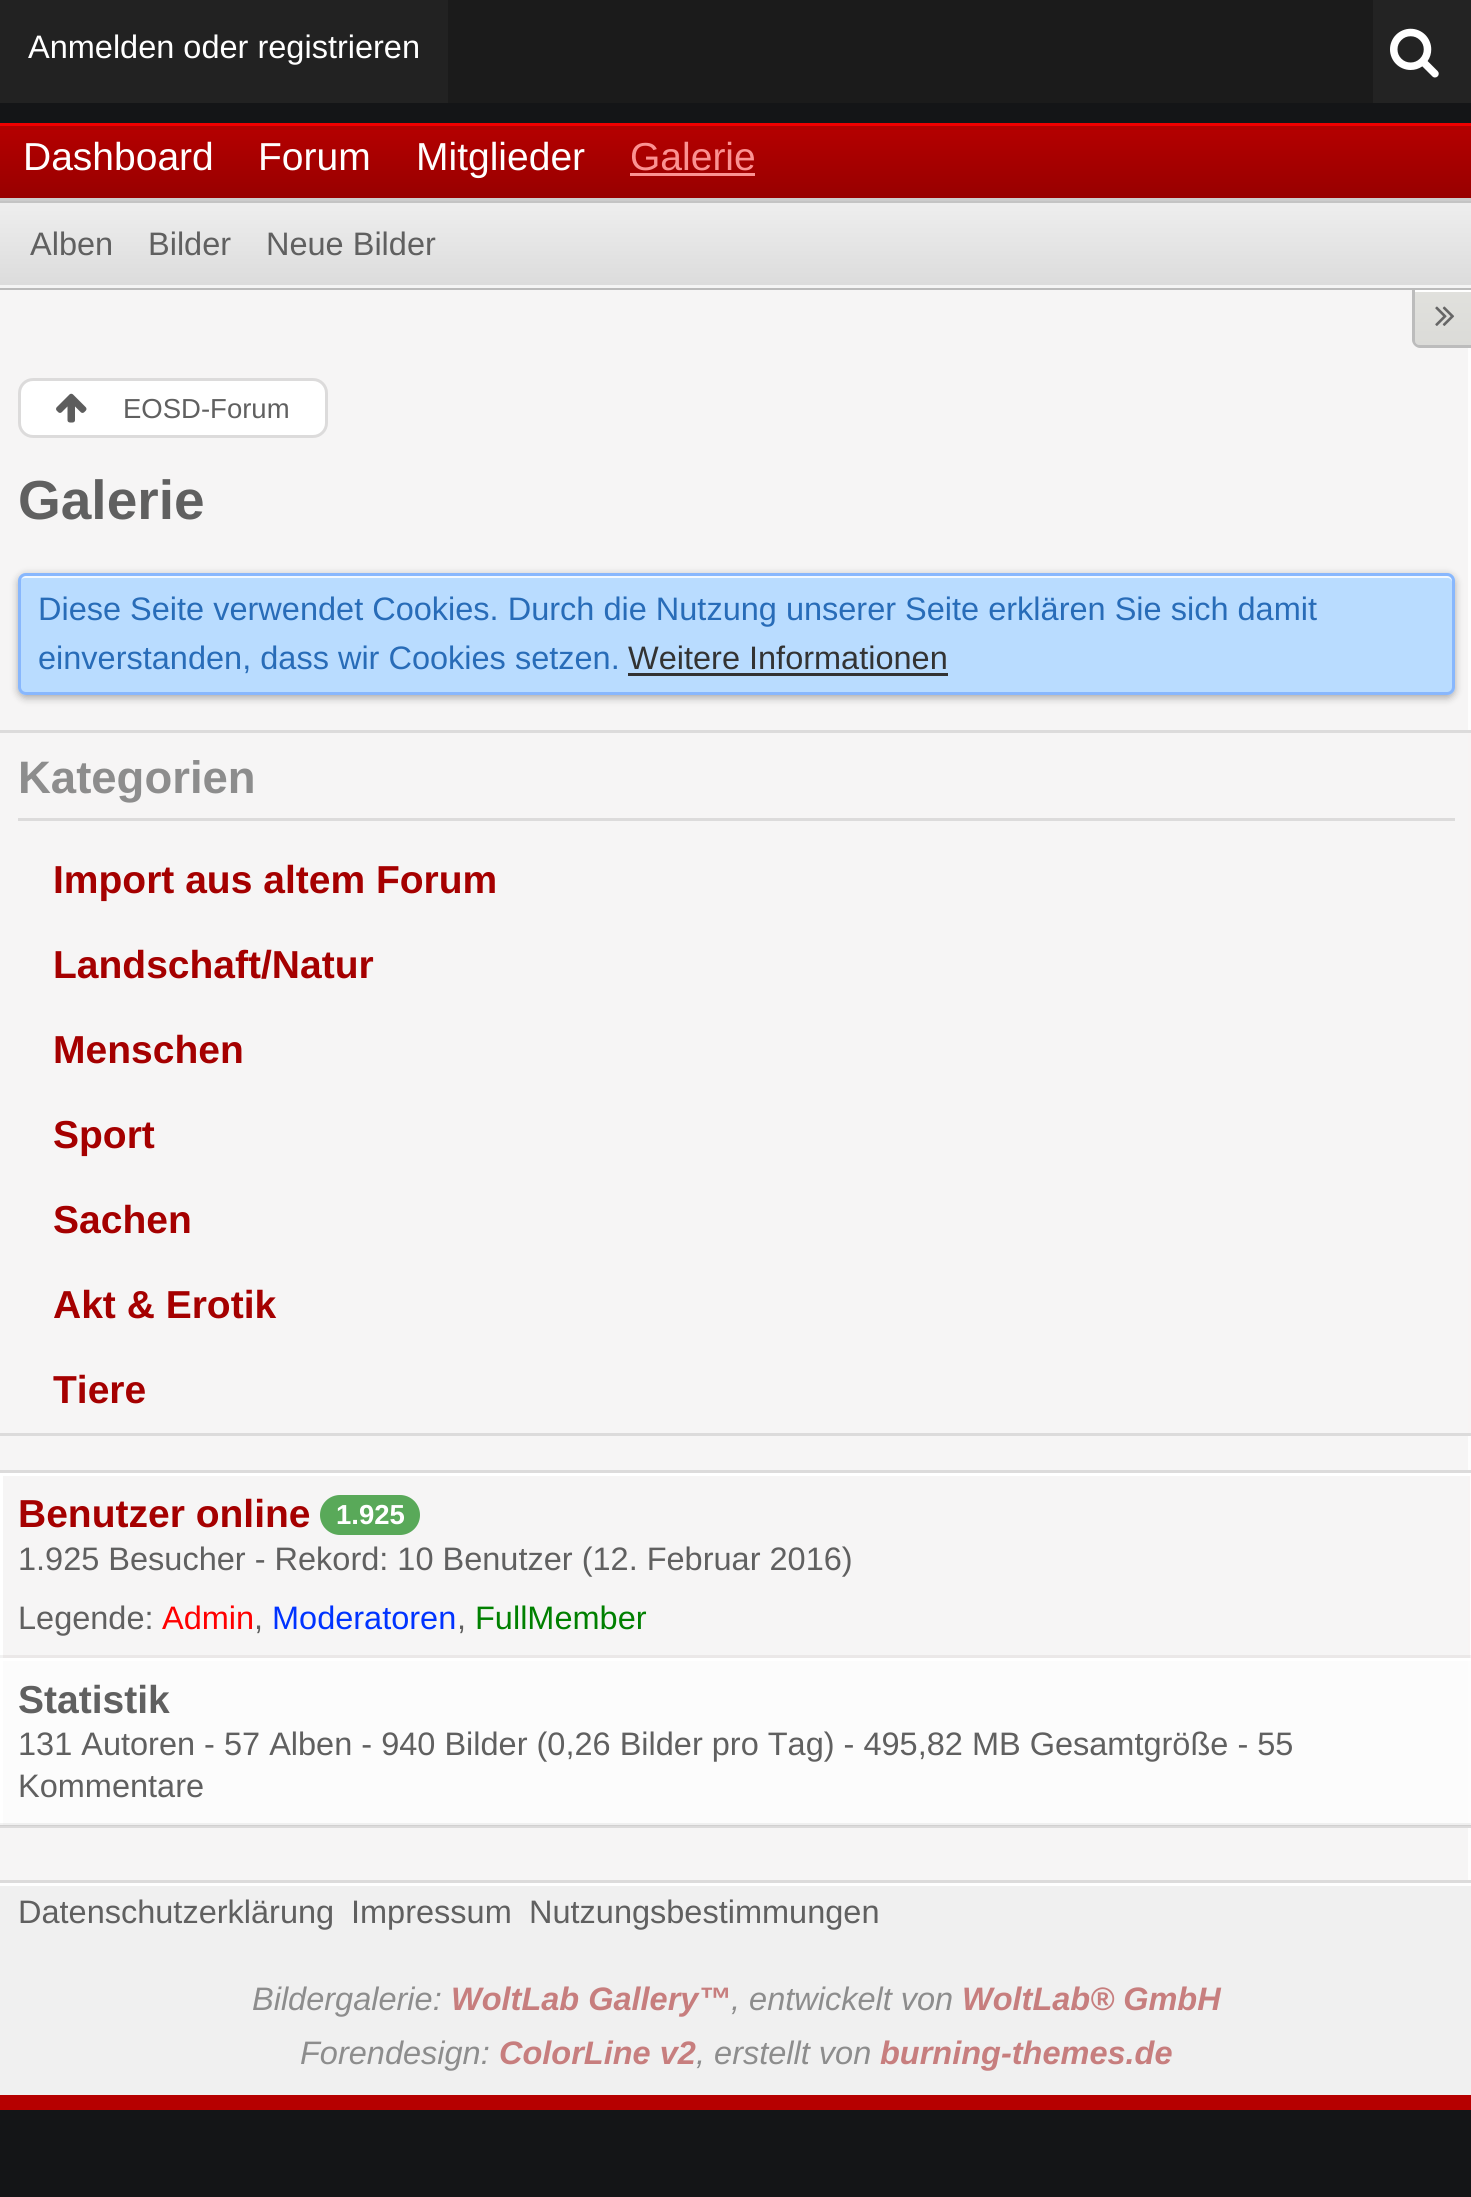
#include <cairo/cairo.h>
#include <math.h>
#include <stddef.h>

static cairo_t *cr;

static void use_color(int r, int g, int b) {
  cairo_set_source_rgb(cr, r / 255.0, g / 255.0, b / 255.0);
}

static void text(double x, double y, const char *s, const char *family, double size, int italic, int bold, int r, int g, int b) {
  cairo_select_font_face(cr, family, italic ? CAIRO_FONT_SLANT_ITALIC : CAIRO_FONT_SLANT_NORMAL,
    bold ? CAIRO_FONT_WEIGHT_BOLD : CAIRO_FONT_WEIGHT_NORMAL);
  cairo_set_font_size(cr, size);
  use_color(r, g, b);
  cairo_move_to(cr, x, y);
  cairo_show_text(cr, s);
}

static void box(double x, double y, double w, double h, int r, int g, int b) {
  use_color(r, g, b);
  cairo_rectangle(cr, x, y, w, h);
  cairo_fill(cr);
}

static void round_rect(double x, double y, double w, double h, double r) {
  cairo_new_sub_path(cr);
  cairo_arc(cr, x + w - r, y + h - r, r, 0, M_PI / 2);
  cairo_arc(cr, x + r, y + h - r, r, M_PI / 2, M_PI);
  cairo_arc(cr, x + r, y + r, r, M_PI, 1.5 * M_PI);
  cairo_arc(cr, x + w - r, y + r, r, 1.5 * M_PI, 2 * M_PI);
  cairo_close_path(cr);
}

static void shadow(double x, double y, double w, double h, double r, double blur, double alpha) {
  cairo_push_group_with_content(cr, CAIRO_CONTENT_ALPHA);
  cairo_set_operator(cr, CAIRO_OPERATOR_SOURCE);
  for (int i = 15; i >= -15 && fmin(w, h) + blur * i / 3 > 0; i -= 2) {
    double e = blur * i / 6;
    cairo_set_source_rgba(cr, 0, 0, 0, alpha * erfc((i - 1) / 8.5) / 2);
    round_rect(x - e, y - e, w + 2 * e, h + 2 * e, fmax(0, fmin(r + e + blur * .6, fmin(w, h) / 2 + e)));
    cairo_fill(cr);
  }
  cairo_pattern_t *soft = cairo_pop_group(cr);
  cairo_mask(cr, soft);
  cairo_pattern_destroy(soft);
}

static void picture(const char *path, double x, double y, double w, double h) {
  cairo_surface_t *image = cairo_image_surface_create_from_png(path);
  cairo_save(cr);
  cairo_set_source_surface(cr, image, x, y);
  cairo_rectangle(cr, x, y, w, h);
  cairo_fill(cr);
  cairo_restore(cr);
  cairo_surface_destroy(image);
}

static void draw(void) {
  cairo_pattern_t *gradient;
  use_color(20, 21, 23);
  cairo_paint(cr);
  box(448, 0, 925, 103, 27, 27, 27);
  box(0, 0, 448, 103, 34, 34, 34);
  box(1373, 0, 98, 103, 35, 35, 35);
  picture("img_01.png", 1390, 28, 49, 50);
  gradient = cairo_pattern_create_linear(736, 122, 736, 198);
  cairo_pattern_add_color_stop_rgba(gradient, 0, 0.714, 0, 0, 1);
  cairo_pattern_add_color_stop_rgba(gradient, 1, 0.596, 0, 0, 1);
  cairo_set_source(cr, gradient);
  cairo_pattern_destroy(gradient);
  cairo_rectangle(cr, 0, 126, 1471, 72);
  cairo_fill(cr);
  box(0, 123, 1471, 3, 240, 0, 0);
  box(630, 173, 125, 3, 251, 146, 146);
  gradient = cairo_pattern_create_linear(736, 200, 736, 288);
  cairo_pattern_add_color_stop_rgba(gradient, 0, 0.937, 0.937, 0.937, 1);
  cairo_pattern_add_color_stop_rgba(gradient, 1, 0.859, 0.859, 0.859, 1);
  cairo_set_source(cr, gradient);
  cairo_pattern_destroy(gradient);
  cairo_rectangle(cr, 0, 203, 1471, 82);
  cairo_fill(cr);
  box(0, 285, 1471, 3, 244, 244, 244);
  box(0, 201, 1471, 2, 196, 196, 196);
  box(0, 198, 1471, 3, 204, 204, 204);
  box(0, 288, 1471, 2, 187, 187, 187);
  box(0, 290, 1468, 1590, 246, 245, 245);
  box(1468, 348, 3, 1532, 253, 253, 253);
  gradient = cairo_pattern_create_linear(1445, 290, 1445, 345);
  cairo_pattern_add_color_stop_rgba(gradient, 0, 0.882, 0.882, 0.867, 1);
  cairo_pattern_add_color_stop_rgba(gradient, 1, 0.859, 0.859, 0.847, 1);
  cairo_set_source(cr, gradient);
  cairo_pattern_destroy(gradient);
  cairo_new_path(cr);
  cairo_move_to(cr, 1415, 290);
  cairo_line_to(cr, 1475, 290);
  cairo_line_to(cr, 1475, 345);
  cairo_line_to(cr, 1420, 345);
  cairo_curve_to(cr, 1417, 345, 1415, 343, 1415, 340);
  cairo_close_path(cr);
  cairo_fill(cr);
  box(1415, 290, 56, 2, 255, 255, 255);
  use_color(188, 188, 188);
  cairo_set_fill_rule(cr, CAIRO_FILL_RULE_EVEN_ODD);
  cairo_new_path(cr);
  cairo_move_to(cr, 1412, 290);
  cairo_line_to(cr, 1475, 290);
  cairo_line_to(cr, 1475, 348);
  cairo_line_to(cr, 1420, 348);
  cairo_curve_to(cr, 1416, 348, 1412, 344, 1412, 340);
  cairo_close_path(cr);
  cairo_move_to(cr, 1415, 290);
  cairo_line_to(cr, 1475, 290);
  cairo_line_to(cr, 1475, 345);
  cairo_line_to(cr, 1420, 345);
  cairo_curve_to(cr, 1417, 345, 1415, 343, 1415, 340);
  cairo_close_path(cr);
  cairo_fill(cr);
  picture("img_02.png", 1435, 306, 20, 20);
  use_color(255, 255, 255);
  round_rect(19.5, 379.5, 307, 57, 13.5);
  cairo_fill_preserve(cr);
  use_color(220, 219, 219);
  cairo_set_line_width(cr, 3);
  cairo_stroke(cr);
  picture("img_03.png", 56, 393, 31, 30);
  use_color(0, 0, 0);
  shadow(18, 575, 1437, 123, 8, 4, 0.3);
  use_color(185, 220, 255);
  round_rect(18, 573, 1437, 122, 8);
  cairo_fill(cr);
  use_color(241, 248, 255);
  cairo_set_fill_rule(cr, CAIRO_FILL_RULE_WINDING);
  cairo_new_path(cr);
  cairo_move_to(cr, 25, 578);
  cairo_line_to(cr, 1448, 578);
  cairo_curve_to(cr, 1450, 578, 1452, 580, 1452, 582);
  cairo_line_to(cr, 1452, 691);
  cairo_curve_to(cr, 1453, 690, 1453, 689, 1453, 688);
  cairo_line_to(cr, 1453, 580);
  cairo_curve_to(cr, 1453, 577, 1451, 575, 1448, 575);
  cairo_line_to(cr, 25, 575);
  cairo_curve_to(cr, 22, 575, 20, 577, 20, 580);
  cairo_line_to(cr, 20, 582);
  cairo_curve_to(cr, 20, 580, 22, 578, 25, 578);
  cairo_close_path(cr);
  cairo_fill(cr);
  round_rect(19.5, 574.5, 1434, 119, 6.5);
  use_color(136, 183, 253);
  cairo_stroke(cr);
  box(628, 673, 320, 3, 51, 51, 51);
  box(1468, 733, 3, 700, 247, 244, 244);
  box(0, 730, 1471, 3, 220, 219, 219);
  box(0, 1433, 1471, 3, 220, 219, 219);
  box(18, 818, 1437, 3, 220, 219, 219);
  box(1468, 1476, 2, 179, 247, 244, 244);
  box(0, 1655, 1471, 3, 235, 232, 232);
  box(0, 1470, 1471, 3, 220, 219, 219);
  box(0, 1826, 1471, 2, 220, 219, 219);
  box(0, 1825, 1471, 1, 209, 208, 208);
  box(1470, 1655, 1, 3, 255, 255, 255);
  box(1470, 1655, 1, 3, 242, 242, 242);
  box(0, 1473, 3, 185, 255, 255, 255);
  box(0, 1655, 3, 3, 242, 242, 242);
  box(0, 1473, 1471, 3, 255, 255, 255);
  use_color(89, 169, 89);
  round_rect(320, 1495, 100, 40, 20);
  cairo_fill(cr);
  box(3, 1661, 1465, 162, 252, 252, 252);
  box(0, 1823, 1471, 2, 239, 239, 239);
  box(1470, 1823, 1, 2, 255, 255, 255);
  box(1470, 1823, 1, 2, 242, 242, 242);
  box(0, 1658, 3, 167, 255, 255, 255);
  box(0, 1823, 3, 2, 242, 242, 242);
  box(0, 1658, 1471, 3, 255, 255, 255);
  box(0, 1886, 1471, 209, 240, 240, 240);
  box(0, 2095, 1471, 15, 182, 0, 0);
  box(0, 1883, 1471, 3, 254, 254, 254);
  box(0, 1880, 1471, 3, 220, 219, 219);
  text(28, 58, "Anmelden oder registrieren", "Liberation Sans", 32.5, 0, 0, 255, 255, 255);
  text(23, 170, "Dashboard", "Liberation Sans", 39, 0, 0, 255, 255, 255);
  text(258, 170, "Forum", "Liberation Sans", 39, 0, 0, 255, 255, 255);
  text(416, 170, "Mitglieder", "Liberation Sans", 39, 0, 0, 255, 255, 255);
  text(630, 170, "Galerie", "Liberation Sans", 39, 0, 0, 251, 146, 146);
  text(30, 255, "Alben", "Liberation Sans", 32.5, 0, 0, 96, 96, 96);
  text(148, 255, "Bilder", "Liberation Sans", 32.5, 0, 0, 96, 96, 96);
  text(266, 255, "Neue Bilder", "Liberation Sans", 32.5, 0, 0, 96, 96, 96);
  text(123, 418, "EOSD-Forum", "Liberation Sans", 27.5, 0, 0, 96, 96, 96);
  text(18, 519, "Galerie", "Liberation Sans", 55, 0, 1, 96, 96, 96);
  text(38, 620, "Diese Seite verwendet Cookies. Durch die Nutzung unserer Seite erklären Sie sich damit", "Liberation Sans", 32.5, 0, 0, 40, 108, 184);
  text(38, 669, "einverstanden, dass wir Cookies setzen.", "Liberation Sans", 32.5, 0, 0, 40, 108, 184);
  text(628, 669, "Weitere Informationen", "Liberation Sans", 32.5, 0, 0, 51, 51, 51);
  text(18, 793, "Kategorien", "Liberation Sans", 45.5, 0, 1, 141, 141, 141);
  text(53, 893, "Import aus altem Forum", "Liberation Sans", 39, 0, 1, 165, 0, 0);
  text(53, 978, "Landschaft/Natur", "Liberation Sans", 39, 0, 1, 165, 0, 0);
  text(53, 1063, "Menschen", "Liberation Sans", 39, 0, 1, 165, 0, 0);
  text(53, 1148, "Sport", "Liberation Sans", 39, 0, 1, 165, 0, 0);
  text(53, 1233, "Sachen", "Liberation Sans", 39, 0, 1, 165, 0, 0);
  text(53, 1318, "Akt & Erotik", "Liberation Sans", 39, 0, 1, 165, 0, 0);
  text(53, 1403, "Tiere", "Liberation Sans", 39, 0, 1, 165, 0, 0);
  text(18, 1527, "Benutzer online", "Liberation Sans", 39, 0, 1, 165, 0, 0);
  text(336, 1524, "1.925", "Liberation Sans", 27.5, 0, 1, 255, 255, 255);
  text(18, 1570, "1.925 Besucher - Rekord: 10 Benutzer (12. Februar 2016)", "Liberation Sans", 32.5, 0, 0, 96, 96, 96);
  text(18, 1629, "Legende:", "Liberation Sans", 32.5, 0, 0, 96, 96, 96);
  text(162, 1629, "Admin", "Liberation Sans", 32.5, 0, 0, 255, 0, 0);
  text(254, 1629, ",", "Liberation Sans", 32.5, 0, 0, 96, 96, 96);
  text(272, 1629, "Moderatoren", "Liberation Sans", 32.5, 0, 0, 0, 51, 255);
  text(457, 1629, ",", "Liberation Sans", 32.5, 0, 0, 96, 96, 96);
  text(475, 1629, "FullMember", "Liberation Sans", 32.5, 0, 0, 0, 128, 0);
  text(18, 1713, "Statistik", "Liberation Sans", 39, 0, 1, 96, 96, 96);
  text(18, 1755, "131 Autoren - 57 Alben - 940 Bilder (0,26 Bilder pro Tag) - 495,82 MB Gesamtgröße - 55", "Liberation Sans", 32.5, 0, 0, 96, 96, 96);
  text(18, 1797, "Kommentare", "Liberation Sans", 32.5, 0, 0, 96, 96, 96);
  text(18, 1923, "Datenschutzerklärung", "Liberation Sans", 32.5, 0, 0, 96, 96, 96);
  text(351, 1923, "Impressum", "Liberation Sans", 32.5, 0, 0, 96, 96, 96);
  text(529, 1923, "Nutzungsbestimmungen", "Liberation Sans", 32.5, 0, 0, 96, 96, 96);
  text(252, 2010, "Bildergalerie:", "Liberation Sans", 32.5, 1, 0, 141, 141, 141);
  text(451, 2010, "WoltLab Gallery™", "Liberation Sans", 32.5, 1, 1, 199, 126, 126);
  text(731, 2010, ", entwickelt von", "Liberation Sans", 32.5, 1, 0, 141, 141, 141);
  text(962, 2010, "WoltLab® GmbH", "Liberation Sans", 32.5, 1, 1, 199, 126, 126);
  text(300, 2064, "Forendesign:", "Liberation Sans", 32.5, 1, 0, 141, 141, 141);
  text(499, 2064, "ColorLine v2", "Liberation Sans", 32.5, 1, 1, 199, 126, 126);
  text(696, 2064, ", erstellt von", "Liberation Sans", 32.5, 1, 0, 141, 141, 141);
  text(880, 2064, "burning-themes.de", "Liberation Sans", 32.5, 1, 1, 199, 126, 126);
}

int main(void) {
  cairo_surface_t *surface = cairo_image_surface_create(CAIRO_FORMAT_RGB24, 1471, 2197);
  cr = cairo_create(surface);
  cairo_font_options_t *options = cairo_font_options_create();
  cairo_font_options_set_hint_metrics(options, CAIRO_HINT_METRICS_OFF);
  cairo_font_options_set_hint_style(options, CAIRO_HINT_STYLE_NONE);
  cairo_set_font_options(cr, options);
  cairo_set_miter_limit(cr, 4);
  draw();
  cairo_surface_write_to_png(surface, "out.png");
  cairo_font_options_destroy(options);
  cairo_destroy(cr);
  cairo_surface_destroy(surface);
  return 0;
}
